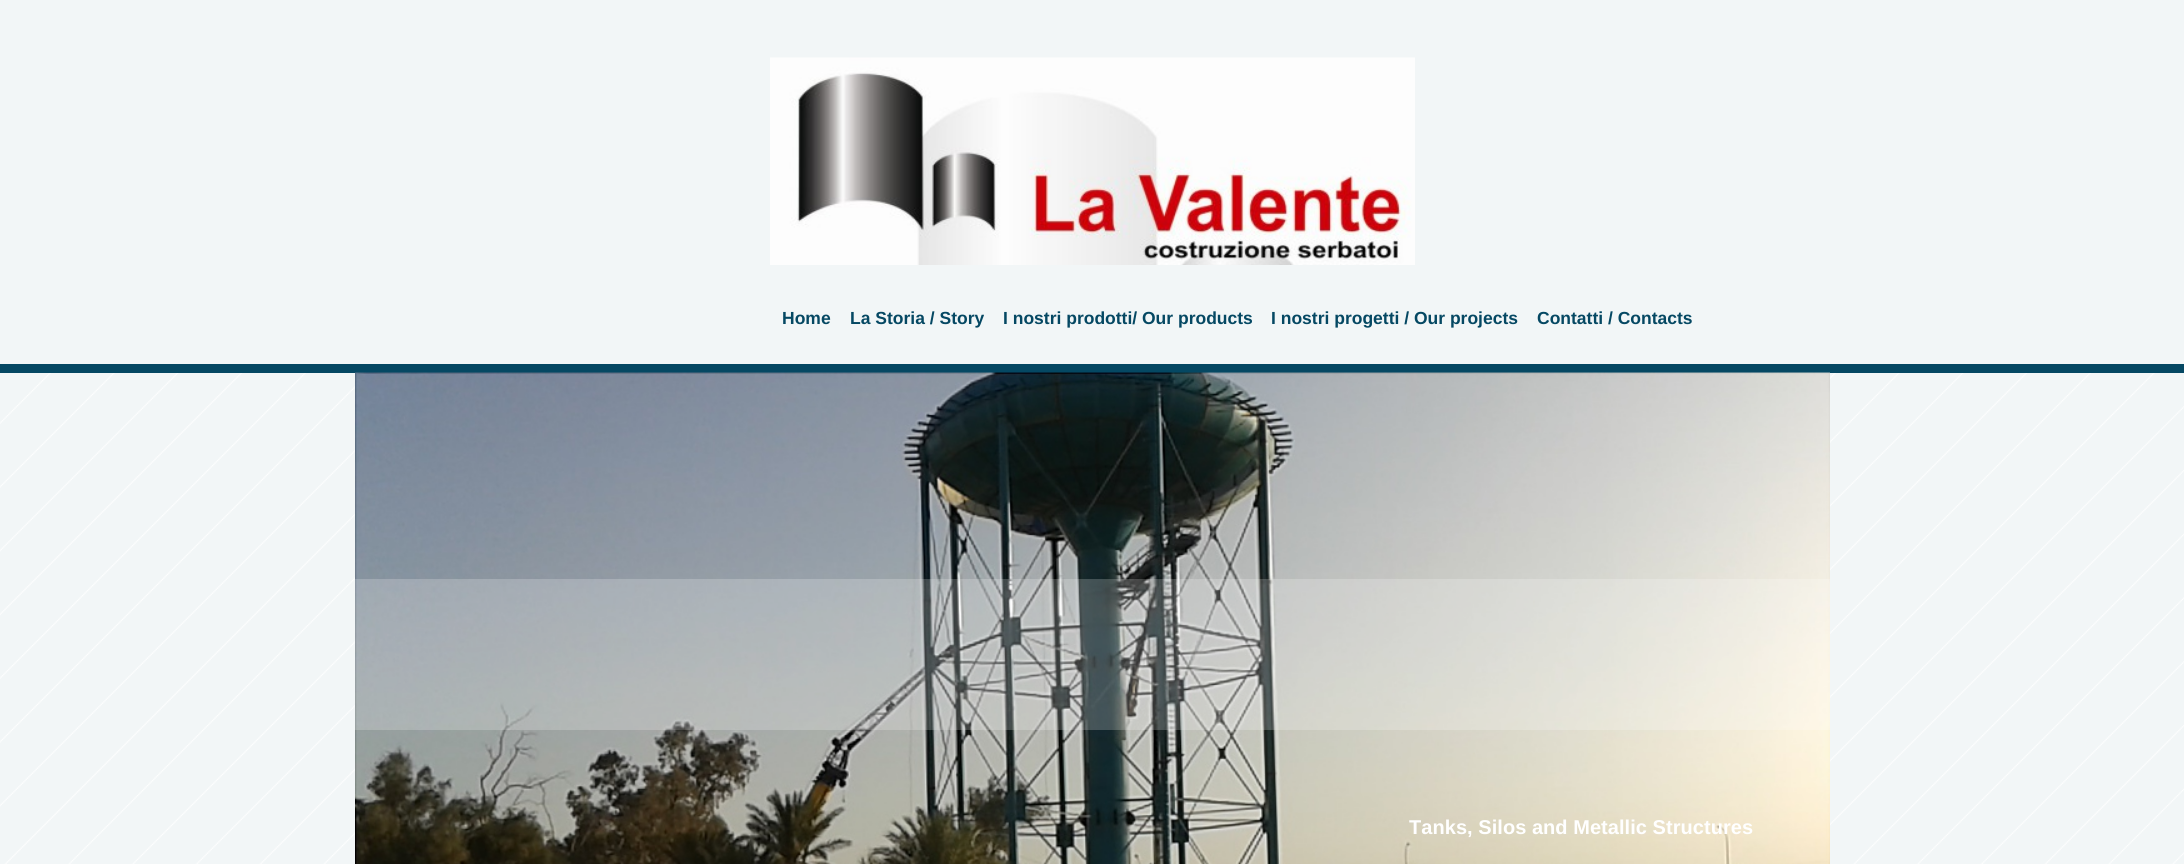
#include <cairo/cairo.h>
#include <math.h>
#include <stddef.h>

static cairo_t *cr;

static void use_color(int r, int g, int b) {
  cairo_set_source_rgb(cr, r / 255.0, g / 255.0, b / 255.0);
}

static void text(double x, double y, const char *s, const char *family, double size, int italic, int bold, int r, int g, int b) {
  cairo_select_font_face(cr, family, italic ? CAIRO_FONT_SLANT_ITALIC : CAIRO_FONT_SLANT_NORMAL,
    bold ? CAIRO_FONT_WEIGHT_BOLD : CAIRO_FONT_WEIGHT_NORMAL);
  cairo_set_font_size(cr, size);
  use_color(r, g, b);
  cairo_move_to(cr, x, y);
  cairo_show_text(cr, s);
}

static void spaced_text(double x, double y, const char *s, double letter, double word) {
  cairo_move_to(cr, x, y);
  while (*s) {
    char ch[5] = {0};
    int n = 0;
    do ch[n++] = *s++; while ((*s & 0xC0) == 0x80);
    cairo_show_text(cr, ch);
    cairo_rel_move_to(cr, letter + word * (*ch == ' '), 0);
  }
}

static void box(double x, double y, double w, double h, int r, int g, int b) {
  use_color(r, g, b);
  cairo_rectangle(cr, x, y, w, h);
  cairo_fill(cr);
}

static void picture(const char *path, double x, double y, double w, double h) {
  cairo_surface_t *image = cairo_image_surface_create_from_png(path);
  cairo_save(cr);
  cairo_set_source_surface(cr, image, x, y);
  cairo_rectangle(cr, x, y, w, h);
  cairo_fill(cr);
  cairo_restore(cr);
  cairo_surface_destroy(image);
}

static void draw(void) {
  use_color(242, 246, 247);
  cairo_paint(cr);
  picture("img_01.png", 0, 373, 2184, 491);
  box(0, 364, 2184, 9, 5, 72, 99);
  picture("img_02.png", 770, 57, 645, 208);
  picture("img_03.png", 355, 372, 1475, 1);
  picture("img_04.png", 355, 372, 1475, 492);
  cairo_set_source_rgba(cr, 1, 1, 1, 0.21);
  cairo_rectangle(cr, 355, 579, 1475, 151);
  cairo_fill(cr);
  text(782, 324, "Home", "Liberation Sans", 17.5, 0, 1, 5, 72, 99);
  text(850, 324, "La Storia / Story", "Liberation Sans", 17.5, 0, 1, 5, 72, 99);
  text(1003, 324, "I nostri prodotti/ Our products", "Liberation Sans", 17.5, 0, 1, 5, 72, 99);
  text(1271, 324, "I nostri progetti / Our projects", "Liberation Sans", 17.5, 0, 1, 5, 72, 99);
  text(1537, 324, "Contatti / Contacts", "Liberation Sans", 17.5, 0, 1, 5, 72, 99);
  cairo_set_font_size(cr, 20);
  use_color(255, 255, 255);
  spaced_text(1409, 834, "Tanks, Silos and Metallic Structures", 0.05, 0);
}

int main(void) {
  cairo_surface_t *surface = cairo_image_surface_create(CAIRO_FORMAT_RGB24, 2184, 864);
  cr = cairo_create(surface);
  cairo_font_options_t *options = cairo_font_options_create();
  cairo_font_options_set_hint_metrics(options, CAIRO_HINT_METRICS_OFF);
  cairo_font_options_set_hint_style(options, CAIRO_HINT_STYLE_NONE);
  cairo_set_font_options(cr, options);
  cairo_set_miter_limit(cr, 4);
  draw();
  cairo_surface_write_to_png(surface, "out.png");
  cairo_font_options_destroy(options);
  cairo_destroy(cr);
  cairo_surface_destroy(surface);
  return 0;
}
